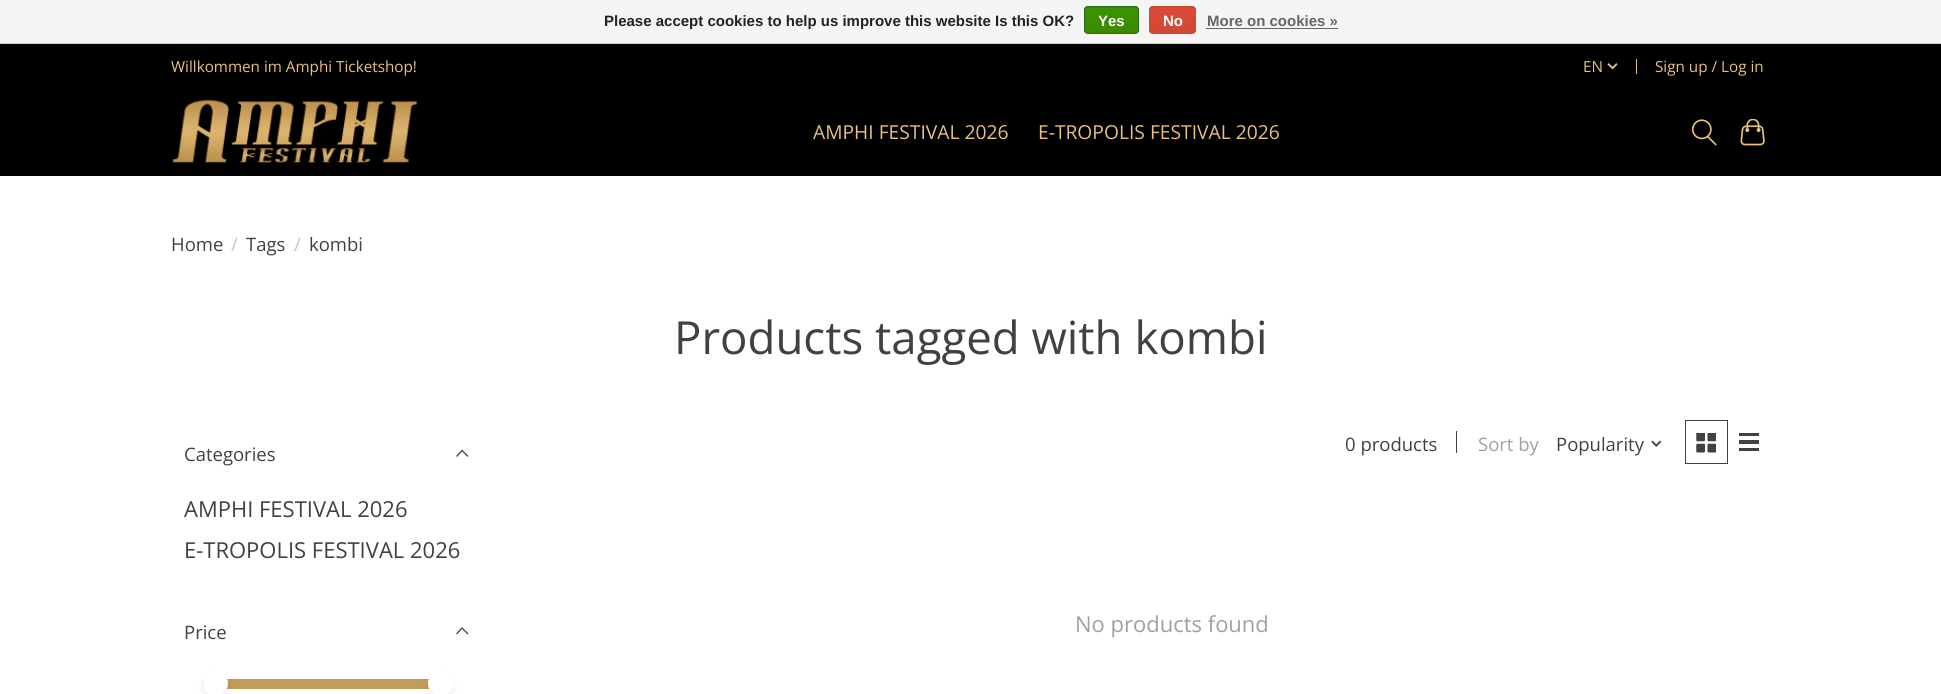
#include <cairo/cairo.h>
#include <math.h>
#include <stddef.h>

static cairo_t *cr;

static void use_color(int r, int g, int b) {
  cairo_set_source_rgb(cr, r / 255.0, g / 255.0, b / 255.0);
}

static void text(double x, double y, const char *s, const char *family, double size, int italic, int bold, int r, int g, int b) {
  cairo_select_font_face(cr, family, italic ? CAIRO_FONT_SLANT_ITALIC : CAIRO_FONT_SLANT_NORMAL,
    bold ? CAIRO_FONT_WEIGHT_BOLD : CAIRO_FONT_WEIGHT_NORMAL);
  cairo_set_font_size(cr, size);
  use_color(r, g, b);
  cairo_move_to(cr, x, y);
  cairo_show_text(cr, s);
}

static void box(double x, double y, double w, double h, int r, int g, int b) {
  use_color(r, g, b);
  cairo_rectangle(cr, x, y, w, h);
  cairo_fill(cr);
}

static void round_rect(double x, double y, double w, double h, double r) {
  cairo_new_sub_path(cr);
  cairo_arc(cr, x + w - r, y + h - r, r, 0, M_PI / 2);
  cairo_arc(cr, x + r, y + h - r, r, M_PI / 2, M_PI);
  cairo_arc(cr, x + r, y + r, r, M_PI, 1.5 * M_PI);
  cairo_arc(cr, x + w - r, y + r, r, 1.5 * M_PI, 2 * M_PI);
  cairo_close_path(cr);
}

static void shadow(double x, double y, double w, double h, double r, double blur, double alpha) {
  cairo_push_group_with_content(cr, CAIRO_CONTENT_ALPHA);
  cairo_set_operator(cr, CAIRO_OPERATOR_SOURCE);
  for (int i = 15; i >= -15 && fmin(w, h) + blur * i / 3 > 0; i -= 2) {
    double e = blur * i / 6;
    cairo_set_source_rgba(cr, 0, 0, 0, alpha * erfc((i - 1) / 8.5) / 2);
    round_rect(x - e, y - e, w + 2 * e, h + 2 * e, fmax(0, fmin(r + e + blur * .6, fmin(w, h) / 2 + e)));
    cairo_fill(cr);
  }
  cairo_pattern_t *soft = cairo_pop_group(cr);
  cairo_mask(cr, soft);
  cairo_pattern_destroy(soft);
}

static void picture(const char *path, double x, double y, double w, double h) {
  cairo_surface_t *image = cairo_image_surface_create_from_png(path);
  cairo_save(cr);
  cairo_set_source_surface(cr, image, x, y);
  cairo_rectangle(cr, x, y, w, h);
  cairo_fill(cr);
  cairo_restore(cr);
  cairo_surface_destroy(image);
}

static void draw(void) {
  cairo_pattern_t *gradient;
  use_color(255, 255, 255);
  cairo_paint(cr);
  box(0, 0, 1941, 43, 245, 245, 245);
  box(0, 43, 1941, 1, 204, 204, 204);
  cairo_save(cr);
  round_rect(1084, 6, 55, 28, 4);
  cairo_clip(cr);
  gradient = cairo_pattern_create_linear(1111, -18, 1111, 7.5);
  cairo_pattern_add_color_stop_rgba(gradient, 0, 0.235, 0.576, 0, 1);
  cairo_pattern_add_color_stop_rgba(gradient, 1, 0.224, 0.541, 0, 1);
  cairo_set_source(cr, gradient);
  cairo_pattern_destroy(gradient);
  cairo_rectangle(cr, 1084, 6, 55, 2);
  cairo_fill(cr);
  gradient = cairo_pattern_create_linear(1111, 7.5, 1111, 33);
  cairo_pattern_add_color_stop_rgba(gradient, 0, 0.235, 0.576, 0, 1);
  cairo_pattern_add_color_stop_rgba(gradient, 1, 0.224, 0.541, 0, 1);
  cairo_set_source(cr, gradient);
  cairo_pattern_destroy(gradient);
  cairo_rectangle(cr, 1084, 8, 55, 25);
  cairo_fill(cr);
  cairo_restore(cr);
  round_rect(1084.5, 6.5, 54, 27, 3.5);
  use_color(41, 105, 29);
  cairo_set_line_width(cr, 1);
  cairo_stroke(cr);
  cairo_save(cr);
  round_rect(1149, 6, 47, 28, 4);
  cairo_clip(cr);
  gradient = cairo_pattern_create_linear(1173, -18, 1173, 7.5);
  cairo_pattern_add_color_stop_rgba(gradient, 0, 0.863, 0.29, 0.22, 1);
  cairo_pattern_add_color_stop_rgba(gradient, 1, 0.82, 0.282, 0.212, 1);
  cairo_set_source(cr, gradient);
  cairo_pattern_destroy(gradient);
  cairo_rectangle(cr, 1149, 6, 47, 2);
  cairo_fill(cr);
  gradient = cairo_pattern_create_linear(1173, 7.5, 1173, 33);
  cairo_pattern_add_color_stop_rgba(gradient, 0, 0.863, 0.29, 0.22, 1);
  cairo_pattern_add_color_stop_rgba(gradient, 1, 0.82, 0.282, 0.212, 1);
  cairo_set_source(cr, gradient);
  cairo_pattern_destroy(gradient);
  cairo_rectangle(cr, 1149, 8, 47, 25);
  cairo_fill(cr);
  cairo_restore(cr);
  round_rect(1149.5, 6.5, 46, 27, 3.5);
  use_color(209, 72, 54);
  cairo_stroke(cr);
  box(1206, 28, 132, 1, 102, 102, 102);
  box(0, 44, 1941, 132, 0, 0, 0);
  picture("img_01.png", 1607, 63, 11, 7);
  box(1636, 59, 1, 15, 232, 193, 124);
  picture("img_02.png", 172, 99, 245, 64);
  picture("img_03.png", 1691, 119, 26, 27);
  picture("img_04.png", 1740, 119, 25, 27);
  cairo_new_path(cr);
  cairo_move_to(cr, 457, 456);
  cairo_line_to(cr, 462, 450.5);
  cairo_move_to(cr, 467.5, 456);
  cairo_line_to(cr, 462, 450.5);
  use_color(65, 65, 65);
  cairo_set_line_width(cr, 1.3);
  cairo_set_line_cap(cr, CAIRO_LINE_CAP_SQUARE);
  cairo_stroke(cr);
  cairo_new_path(cr);
  cairo_move_to(cr, 457, 633.5);
  cairo_line_to(cr, 462, 628);
  cairo_move_to(cr, 467.5, 633.5);
  cairo_line_to(cr, 462, 628);
  cairo_stroke(cr);
  use_color(197, 155, 88);
  cairo_new_path(cr);
  cairo_move_to(cr, 208, 679);
  cairo_line_to(cr, 440, 679);
  cairo_line_to(cr, 440, 689);
  cairo_line_to(cr, 208, 689);
  cairo_curve_to(cr, 205, 689, 203, 687, 203, 684);
  cairo_curve_to(cr, 203, 681, 205, 679, 208, 679);
  cairo_close_path(cr);
  cairo_fill(cr);
  use_color(0, 0, 0);
  shadow(203, 675, 25, 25, 12.5, 3.5, 0.08);
  use_color(255, 255, 255);
  cairo_arc(cr, 215.5, 683.5, 12.5, 0, 2 * M_PI);
  cairo_fill(cr);
  use_color(0, 0, 0);
  shadow(428, 675, 25, 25, 12.5, 3.5, 0.08);
  use_color(255, 255, 255);
  cairo_arc(cr, 440.5, 683.5, 12.5, 0, 2 * M_PI);
  cairo_fill(cr);
  box(1456, 431, 1, 22, 65, 65, 65);
  picture("img_05.png", 1651, 440, 11, 7);
  cairo_rectangle(cr, 1685.5, 420.5, 42, 43);
  cairo_set_line_width(cr, 1);
  cairo_set_line_cap(cr, CAIRO_LINE_CAP_BUTT);
  cairo_stroke(cr);
  picture("img_06.png", 1696, 433, 20, 20);
  box(1739, 433, 20, 3, 65, 65, 65);
  box(1739, 440, 20, 4, 65, 65, 65);
  box(1739, 448, 20, 3, 65, 65, 65);
  text(604, 26, "Please accept cookies to help us improve this website Is this OK?", "Liberation Sans", 15, 0, 1, 34, 34, 34);
  text(1098, 26, "Yes", "Liberation Sans", 15, 0, 1, 255, 255, 255);
  text(1163, 26, "No", "Liberation Sans", 15, 0, 1, 255, 255, 255);
  text(1207, 26, "More on cookies »", "Liberation Sans", 15, 0, 1, 102, 102, 102);
  text(171, 72, "Willkommen im Amphi Ticketshop!", "Open Sans", 15.25, 0, 0, 232, 193, 124);
  text(1583, 72, "EN", "Open Sans", 15.25, 0, 0, 232, 193, 124);
  text(1655, 72, "Sign up / Log in", "Open Sans", 15.25, 0, 0, 232, 193, 124);
  text(813, 139, "AMPHI FESTIVAL 2026", "Open Sans", 19.25, 0, 0, 232, 193, 124);
  text(1038, 139, "E-TROPOLIS FESTIVAL 2026", "Open Sans", 19.25, 0, 0, 232, 193, 124);
  text(171, 251, "Home", "Open Sans", 18.5, 0, 0, 65, 65, 65);
  text(231, 251, "/", "Open Sans", 18.5, 0, 0, 198, 198, 198);
  text(246, 251, "Tags", "Open Sans", 18.5, 0, 0, 65, 65, 65);
  text(294, 251, "/", "Open Sans", 18.5, 0, 0, 198, 198, 198);
  text(309, 251, "kombi", "Open Sans", 18.5, 0, 0, 65, 65, 65);
  text(674, 354, "Products tagged with kombi", "Open Sans", 45.6, 0, 0, 65, 65, 65);
  text(184, 461, "Categories", "Open Sans", 18.5, 0, 0, 65, 65, 65);
  text(184, 517, "AMPHI FESTIVAL 2026", "Open Sans", 22, 0, 0, 65, 65, 65);
  text(184, 558, "E-TROPOLIS FESTIVAL 2026", "Open Sans", 22, 0, 0, 65, 65, 65);
  text(184, 639, "Price", "Open Sans", 18.5, 0, 0, 65, 65, 65);
  text(1345, 451, "0 products", "Open Sans", 18.5, 0, 0, 65, 65, 65);
  text(1478, 451, "Sort by", "Open Sans", 18.5, 0, 0, 160, 160, 160);
  text(1556, 451, "Popularity", "Open Sans", 18.5, 0, 0, 65, 65, 65);
  text(1075, 632, "No products found", "Open Sans", 22, 0, 0, 160, 160, 160);
}

int main(void) {
  cairo_surface_t *surface = cairo_image_surface_create(CAIRO_FORMAT_RGB24, 1941, 694);
  cr = cairo_create(surface);
  cairo_font_options_t *options = cairo_font_options_create();
  cairo_font_options_set_hint_metrics(options, CAIRO_HINT_METRICS_OFF);
  cairo_font_options_set_hint_style(options, CAIRO_HINT_STYLE_NONE);
  cairo_set_font_options(cr, options);
  cairo_set_miter_limit(cr, 4);
  draw();
  cairo_surface_write_to_png(surface, "out.png");
  cairo_font_options_destroy(options);
  cairo_destroy(cr);
  cairo_surface_destroy(surface);
  return 0;
}
